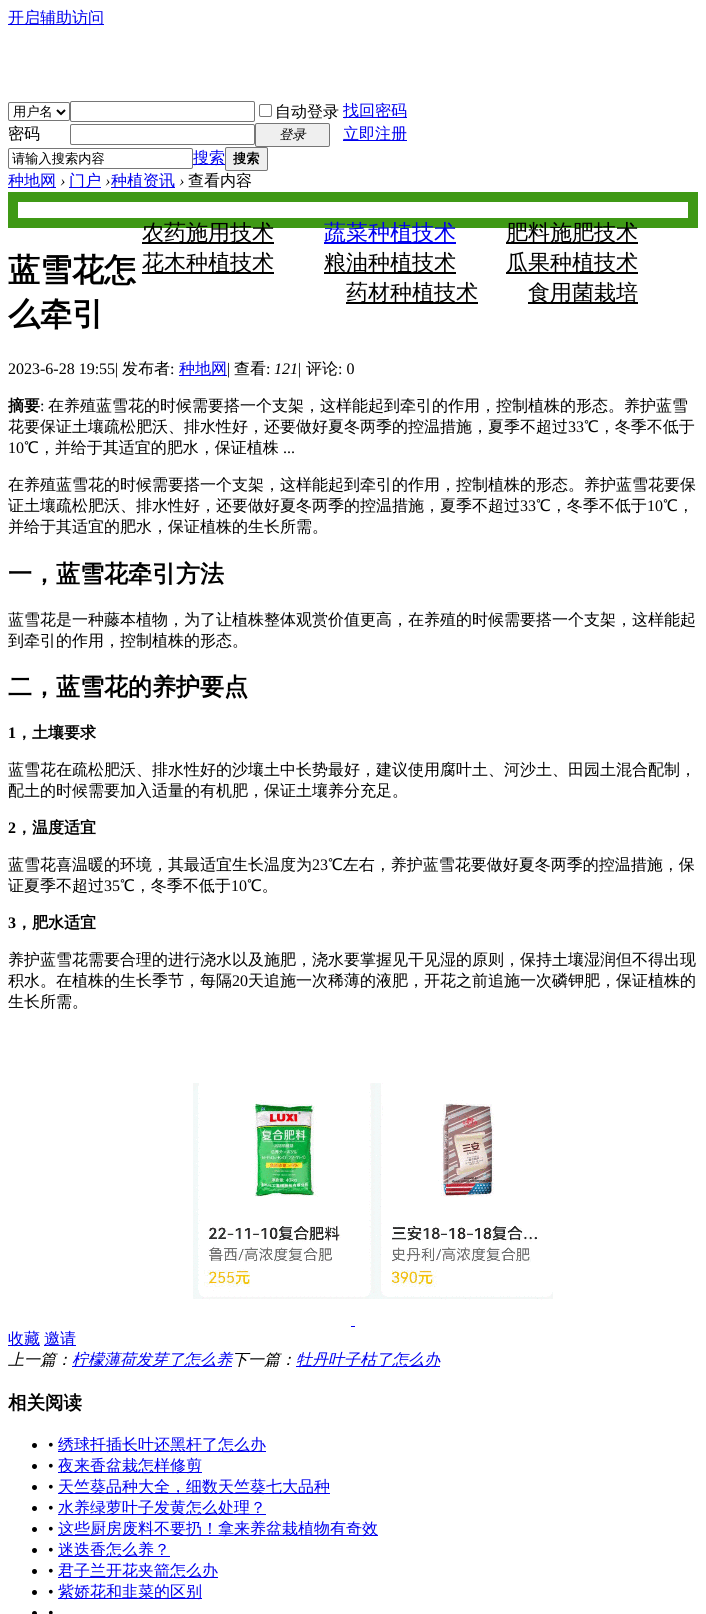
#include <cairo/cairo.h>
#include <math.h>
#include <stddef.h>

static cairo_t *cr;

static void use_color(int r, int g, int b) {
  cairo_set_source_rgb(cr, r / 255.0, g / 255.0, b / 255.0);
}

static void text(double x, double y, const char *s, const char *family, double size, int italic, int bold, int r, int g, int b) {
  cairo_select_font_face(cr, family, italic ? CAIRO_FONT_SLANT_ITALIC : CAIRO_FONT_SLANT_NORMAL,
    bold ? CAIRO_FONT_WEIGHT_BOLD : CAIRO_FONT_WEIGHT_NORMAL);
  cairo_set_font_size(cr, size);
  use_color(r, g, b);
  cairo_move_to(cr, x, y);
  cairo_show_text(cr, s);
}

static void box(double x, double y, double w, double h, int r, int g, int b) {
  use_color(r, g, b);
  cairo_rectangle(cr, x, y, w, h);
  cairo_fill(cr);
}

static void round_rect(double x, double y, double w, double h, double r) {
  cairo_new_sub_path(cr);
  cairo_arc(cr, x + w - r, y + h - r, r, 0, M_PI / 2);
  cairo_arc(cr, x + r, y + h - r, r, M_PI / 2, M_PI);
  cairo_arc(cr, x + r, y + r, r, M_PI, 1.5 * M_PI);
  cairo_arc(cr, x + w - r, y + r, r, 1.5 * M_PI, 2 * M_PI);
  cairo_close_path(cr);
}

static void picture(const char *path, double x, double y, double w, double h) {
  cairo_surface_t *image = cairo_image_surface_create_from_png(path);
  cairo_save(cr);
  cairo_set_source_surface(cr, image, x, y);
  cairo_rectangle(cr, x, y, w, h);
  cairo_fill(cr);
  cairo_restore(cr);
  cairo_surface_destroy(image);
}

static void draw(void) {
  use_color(255, 255, 255);
  cairo_paint(cr);
  box(8, 24, 96, 1, 0, 0, 238);
  round_rect(8.5, 102.5, 61, 18, 1.5);
  use_color(118, 118, 118);
  cairo_set_line_width(cr, 1);
  cairo_stroke(cr);
  cairo_new_path(cr);
  cairo_move_to(cr, 57, 110);
  cairo_line_to(cr, 61, 114);
  cairo_line_to(cr, 65, 110);
  use_color(0, 0, 0);
  cairo_set_line_width(cr, 2);
  cairo_stroke(cr);
  round_rect(70.5, 101.5, 184, 20, 1.5);
  use_color(118, 118, 118);
  cairo_set_line_width(cr, 1);
  cairo_stroke(cr);
  round_rect(259.5, 104.5, 12, 12, 1.5);
  cairo_stroke(cr);
  box(343, 117, 64, 1, 0, 0, 238);
  round_rect(70.5, 124.5, 184, 20, 1.5);
  use_color(118, 118, 118);
  cairo_stroke(cr);
  use_color(239, 239, 239);
  round_rect(255.5, 123.5, 74, 23, 1.5);
  cairo_fill_preserve(cr);
  use_color(118, 118, 118);
  cairo_stroke(cr);
  box(343, 140, 64, 1, 0, 0, 238);
  round_rect(8.5, 148.5, 184, 20, 1.5);
  use_color(118, 118, 118);
  cairo_stroke(cr);
  box(193, 164, 32, 1, 0, 0, 238);
  use_color(239, 239, 239);
  round_rect(225.5, 147.5, 42, 23, 1.5);
  cairo_fill_preserve(cr);
  use_color(118, 118, 118);
  cairo_stroke(cr);
  box(8, 187, 48, 1, 0, 0, 238);
  box(69, 187, 32, 1, 0, 0, 238);
  box(111, 187, 64, 1, 0, 0, 238);
  cairo_rectangle(cr, 13, 197, 680, 26);
  use_color(63, 153, 21);
  cairo_set_line_width(cr, 10);
  cairo_stroke(cr);
  box(142, 242, 132, 2, 0, 0, 0);
  box(506, 272, 132, 2, 0, 0, 0);
  box(324, 242, 132, 2, 0, 0, 238);
  box(506, 242, 132, 2, 0, 0, 0);
  box(142, 272, 132, 2, 0, 0, 0);
  box(324, 272, 132, 2, 0, 0, 0);
  box(346, 302, 132, 2, 0, 0, 0);
  box(528, 302, 110, 2, 0, 0, 0);
  box(179, 375, 48, 1, 0, 0, 238);
  picture("img_01.png", 193, 1083, 360, 217);
  box(351, 1326, 4, 1, 0, 0, 238);
  box(8, 1345, 32, 1, 0, 0, 238);
  box(44, 1345, 32, 1, 0, 0, 238);
  box(72, 1366, 160, 1, 0, 0, 238);
  box(296, 1366, 144, 1, 0, 0, 238);
  use_color(0, 0, 0);
  cairo_arc(cr, 34.5, 1445.5, 2.5, 0, 2 * M_PI);
  cairo_fill(cr);
  box(58, 1451, 208, 1, 0, 0, 238);
  use_color(0, 0, 0);
  cairo_arc(cr, 34.5, 1466.5, 2.5, 0, 2 * M_PI);
  cairo_fill(cr);
  box(58, 1472, 144, 1, 0, 0, 238);
  use_color(0, 0, 0);
  cairo_arc(cr, 34.5, 1487.5, 2.5, 0, 2 * M_PI);
  cairo_fill(cr);
  box(58, 1493, 272, 1, 0, 0, 238);
  use_color(0, 0, 0);
  cairo_arc(cr, 34.5, 1508.5, 2.5, 0, 2 * M_PI);
  cairo_fill(cr);
  box(58, 1514, 208, 1, 0, 0, 238);
  use_color(0, 0, 0);
  cairo_arc(cr, 34.5, 1529.5, 2.5, 0, 2 * M_PI);
  cairo_fill(cr);
  box(58, 1535, 320, 1, 0, 0, 238);
  use_color(0, 0, 0);
  cairo_arc(cr, 34.5, 1550.5, 2.5, 0, 2 * M_PI);
  cairo_fill(cr);
  box(58, 1556, 112, 1, 0, 0, 238);
  use_color(0, 0, 0);
  cairo_arc(cr, 34.5, 1571.5, 2.5, 0, 2 * M_PI);
  cairo_fill(cr);
  box(58, 1577, 160, 1, 0, 0, 238);
  use_color(0, 0, 0);
  cairo_arc(cr, 34.5, 1592.5, 2.5, 0, 2 * M_PI);
  cairo_fill(cr);
  box(58, 1598, 144, 1, 0, 0, 238);
  use_color(0, 0, 0);
  cairo_arc(cr, 34.5, 1613.5, 2.5, 0, 2 * M_PI);
  cairo_fill(cr);
  text(8, 23, "开启辅助访问", "WenQuanYi Zen Hei Medium", 16, 0, 0, 0, 0, 238);
  text(13, 116, "用户名", "WenQuanYi Zen Hei Medium", 13.25, 0, 0, 0, 0, 0);
  text(275, 117, "自动登录", "WenQuanYi Zen Hei Medium", 16, 0, 0, 0, 0, 0);
  text(343, 116, "找回密码", "WenQuanYi Zen Hei Medium", 16, 0, 0, 0, 0, 238);
  text(8, 139, "密码", "WenQuanYi Zen Hei Medium", 16, 0, 0, 0, 0, 0);
  text(279, 139, "登录", "WenQuanYi Zen Hei Medium", 13.25, 1, 0, 0, 0, 0);
  text(343, 139, "立即注册", "WenQuanYi Zen Hei Medium", 16, 0, 0, 0, 0, 238);
  text(12, 163, "请输入搜索内容", "WenQuanYi Zen Hei Medium", 13.25, 0, 0, 0, 0, 0);
  text(193, 163, "搜索", "WenQuanYi Zen Hei Medium", 16, 0, 0, 0, 0, 238);
  text(233, 163, "搜索", "WenQuanYi Zen Hei", 13.25, 0, 1, 0, 0, 0);
  text(8, 186, "种地网", "WenQuanYi Zen Hei Medium", 16, 0, 0, 0, 0, 238);
  text(60, 186, "›", "Liberation Serif", 16, 1, 0, 0, 0, 0);
  text(69, 186, "门户", "WenQuanYi Zen Hei Medium", 16, 0, 0, 0, 0, 238);
  text(105, 186, "›", "Liberation Serif", 16, 1, 0, 0, 0, 0);
  text(111, 186, "种植资讯", "WenQuanYi Zen Hei Medium", 16, 0, 0, 0, 0, 238);
  text(179, 186, "›", "Liberation Serif", 16, 1, 0, 0, 0, 0);
  text(188, 186, "查看内容", "WenQuanYi Zen Hei Medium", 16, 0, 0, 0, 0, 0);
  text(142, 240, "农药施用技术", "WenQuanYi Zen Hei Medium", 22, 0, 0, 0, 0, 0);
  text(506, 270, "瓜果种植技术", "WenQuanYi Zen Hei Medium", 22, 0, 0, 0, 0, 0);
  text(324, 240, "蔬菜种植技术", "WenQuanYi Zen Hei Medium", 22, 0, 0, 0, 0, 238);
  text(506, 240, "肥料施肥技术", "WenQuanYi Zen Hei Medium", 22, 0, 0, 0, 0, 0);
  text(142, 270, "花木种植技术", "WenQuanYi Zen Hei Medium", 22, 0, 0, 0, 0, 0);
  text(324, 270, "粮油种植技术", "WenQuanYi Zen Hei Medium", 22, 0, 0, 0, 0, 0);
  text(346, 300, "药材种植技术", "WenQuanYi Zen Hei Medium", 22, 0, 0, 0, 0, 0);
  text(528, 300, "食用菌栽培", "WenQuanYi Zen Hei Medium", 22, 0, 0, 0, 0, 0);
  text(8, 281, "蓝雪花怎", "WenQuanYi Zen Hei", 32, 0, 1, 0, 0, 0);
  text(8, 325, "么牵引", "WenQuanYi Zen Hei", 32, 0, 1, 0, 0, 0);
  text(8, 374, "2023-6-28 19:55|", "Liberation Serif", 16, 0, 0, 0, 0, 0);
  text(122, 374, "发布者", "WenQuanYi Zen Hei Medium", 16, 0, 0, 0, 0, 0);
  text(170, 374, ":", "Liberation Serif", 16, 0, 0, 0, 0, 0);
  text(179, 374, "种地网", "WenQuanYi Zen Hei Medium", 16, 0, 0, 0, 0, 238);
  text(227, 374, "|", "Liberation Serif", 16, 0, 0, 0, 0, 0);
  text(234, 374, "查看", "WenQuanYi Zen Hei Medium", 16, 0, 0, 0, 0, 0);
  text(266, 374, ":", "Liberation Serif", 16, 0, 0, 0, 0, 0);
  text(274, 374, "121", "Liberation Serif", 16, 1, 0, 0, 0, 0);
  text(298, 374, "|", "Liberation Serif", 16, 0, 0, 0, 0, 0);
  text(306, 374, "评论", "WenQuanYi Zen Hei Medium", 16, 0, 0, 0, 0, 0);
  text(338, 374, ": 0", "Liberation Serif", 16, 0, 0, 0, 0, 0);
  text(8, 411, "摘要", "WenQuanYi Zen Hei", 16, 0, 1, 0, 0, 0);
  text(40, 411, ":", "Liberation Serif", 16, 0, 0, 0, 0, 0);
  text(48, 411, "在养殖蓝雪花的时候需要搭一个支架，这样能起到牵引的作用，控制植株的形态。养护蓝雪", "WenQuanYi Zen Hei Medium", 16, 0, 0, 0, 0, 0);
  text(8, 432, "花要保证土壤疏松肥沃、排水性好，还要做好夏冬两季的控温措施，夏季不超过", "WenQuanYi Zen Hei Medium", 16, 0, 0, 0, 0, 0);
  text(568, 432, "33", "Liberation Serif", 16, 0, 0, 0, 0, 0);
  text(584, 432, "℃，冬季不低于", "WenQuanYi Zen Hei Medium", 16, 0, 0, 0, 0, 0);
  text(8, 453, "10", "Liberation Serif", 16, 0, 0, 0, 0, 0);
  text(24, 453, "℃，并给于其适宜的肥水，保证植株", "WenQuanYi Zen Hei Medium", 16, 0, 0, 0, 0, 0);
  text(283, 453, "...", "Liberation Serif", 16, 0, 0, 0, 0, 0);
  text(8, 490, "在养殖蓝雪花的时候需要搭一个支架，这样能起到牵引的作用，控制植株的形态。养护蓝雪花要保", "WenQuanYi Zen Hei Medium", 16, 0, 0, 0, 0, 0);
  text(8, 511, "证土壤疏松肥沃、排水性好，还要做好夏冬两季的控温措施，夏季不超过", "WenQuanYi Zen Hei Medium", 16, 0, 0, 0, 0, 0);
  text(520, 511, "33", "Liberation Serif", 16, 0, 0, 0, 0, 0);
  text(536, 511, "℃，冬季不低于", "WenQuanYi Zen Hei Medium", 16, 0, 0, 0, 0, 0);
  text(647, 511, "10", "Liberation Serif", 16, 0, 0, 0, 0, 0);
  text(663, 511, "℃，", "WenQuanYi Zen Hei Medium", 16, 0, 0, 0, 0, 0);
  text(8, 532, "并给于其适宜的肥水，保证植株的生长所需。", "WenQuanYi Zen Hei Medium", 16, 0, 0, 0, 0, 0);
  text(8, 582, "一，蓝雪花牵引方法", "WenQuanYi Zen Hei", 24, 0, 1, 0, 0, 0);
  text(8, 625, "蓝雪花是一种藤本植物，为了让植株整体观赏价值更高，在养殖的时候需要搭一个支架，这样能起", "WenQuanYi Zen Hei Medium", 16, 0, 0, 0, 0, 0);
  text(8, 646, "到牵引的作用，控制植株的形态。", "WenQuanYi Zen Hei Medium", 16, 0, 0, 0, 0, 0);
  text(8, 695, "二，蓝雪花的养护要点", "WenQuanYi Zen Hei", 24, 0, 1, 0, 0, 0);
  text(8, 738, "1", "Liberation Serif", 16, 0, 1, 0, 0, 0);
  text(16, 738, "，土壤要求", "WenQuanYi Zen Hei", 16, 0, 1, 0, 0, 0);
  text(8, 775, "蓝雪花在疏松肥沃、排水性好的沙壤土中长势最好，建议使用腐叶土、河沙土、田园土混合配制，", "WenQuanYi Zen Hei Medium", 16, 0, 0, 0, 0, 0);
  text(8, 796, "配土的时候需要加入适量的有机肥，保证土壤养分充足。", "WenQuanYi Zen Hei Medium", 16, 0, 0, 0, 0, 0);
  text(8, 833, "2", "Liberation Serif", 16, 0, 1, 0, 0, 0);
  text(16, 833, "，温度适宜", "WenQuanYi Zen Hei", 16, 0, 1, 0, 0, 0);
  text(8, 870, "蓝雪花喜温暖的环境，其最适宜生长温度为", "WenQuanYi Zen Hei Medium", 16, 0, 0, 0, 0, 0);
  text(312, 870, "23", "Liberation Serif", 16, 0, 0, 0, 0, 0);
  text(328, 870, "℃左右，养护蓝雪花要做好夏冬两季的控温措施，保", "WenQuanYi Zen Hei Medium", 16, 0, 0, 0, 0, 0);
  text(8, 891, "证夏季不超过", "WenQuanYi Zen Hei Medium", 16, 0, 0, 0, 0, 0);
  text(104, 891, "35", "Liberation Serif", 16, 0, 0, 0, 0, 0);
  text(120, 891, "℃，冬季不低于", "WenQuanYi Zen Hei Medium", 16, 0, 0, 0, 0, 0);
  text(231, 891, "10", "Liberation Serif", 16, 0, 0, 0, 0, 0);
  text(247, 891, "℃。", "WenQuanYi Zen Hei Medium", 16, 0, 0, 0, 0, 0);
  text(8, 928, "3", "Liberation Serif", 16, 0, 1, 0, 0, 0);
  text(16, 928, "，肥水适宜", "WenQuanYi Zen Hei", 16, 0, 1, 0, 0, 0);
  text(8, 965, "养护蓝雪花需要合理的进行浇水以及施肥，浇水要掌握见干见湿的原则，保持土壤湿润但不得出现", "WenQuanYi Zen Hei Medium", 16, 0, 0, 0, 0, 0);
  text(8, 986, "积水。在植株的生长季节，每隔", "WenQuanYi Zen Hei Medium", 16, 0, 0, 0, 0, 0);
  text(232, 986, "20", "Liberation Serif", 16, 0, 0, 0, 0, 0);
  text(248, 986, "天追施一次稀薄的液肥，开花之前追施一次磷钾肥，保证植株的", "WenQuanYi Zen Hei Medium", 16, 0, 0, 0, 0, 0);
  text(8, 1007, "生长所需。", "WenQuanYi Zen Hei Medium", 16, 0, 0, 0, 0, 0);
  text(8, 1344, "收藏", "WenQuanYi Zen Hei Medium", 16, 0, 0, 0, 0, 238);
  text(44, 1344, "邀请", "WenQuanYi Zen Hei Medium", 16, 0, 0, 0, 0, 238);
  text(8, 1365, "上一篇：", "WenQuanYi Zen Hei Medium", 16, 1, 0, 0, 0, 0);
  text(72, 1365, "柠檬薄荷发芽了怎么养", "WenQuanYi Zen Hei Medium", 16, 1, 0, 0, 0, 238);
  text(232, 1365, "下一篇：", "WenQuanYi Zen Hei Medium", 16, 1, 0, 0, 0, 0);
  text(296, 1365, "牡丹叶子枯了怎么办", "WenQuanYi Zen Hei Medium", 16, 1, 0, 0, 0, 238);
  text(8, 1409, "相关阅读", "WenQuanYi Zen Hei", 18.5, 0, 1, 0, 0, 0);
  text(48, 1450, "•", "Liberation Serif", 16, 0, 0, 0, 0, 0);
  text(58, 1450, "绣球扦插长叶还黑杆了怎么办", "WenQuanYi Zen Hei Medium", 16, 0, 0, 0, 0, 238);
  text(48, 1471, "•", "Liberation Serif", 16, 0, 0, 0, 0, 0);
  text(58, 1471, "夜来香盆栽怎样修剪", "WenQuanYi Zen Hei Medium", 16, 0, 0, 0, 0, 238);
  text(48, 1492, "•", "Liberation Serif", 16, 0, 0, 0, 0, 0);
  text(58, 1492, "天竺葵品种大全，细数天竺葵七大品种", "WenQuanYi Zen Hei Medium", 16, 0, 0, 0, 0, 238);
  text(48, 1513, "•", "Liberation Serif", 16, 0, 0, 0, 0, 0);
  text(58, 1513, "水养绿萝叶子发黄怎么处理？", "WenQuanYi Zen Hei Medium", 16, 0, 0, 0, 0, 238);
  text(48, 1534, "•", "Liberation Serif", 16, 0, 0, 0, 0, 0);
  text(58, 1534, "这些厨房废料不要扔！拿来养盆栽植物有奇效", "WenQuanYi Zen Hei Medium", 16, 0, 0, 0, 0, 238);
  text(48, 1555, "•", "Liberation Serif", 16, 0, 0, 0, 0, 0);
  text(58, 1555, "迷迭香怎么养？", "WenQuanYi Zen Hei Medium", 16, 0, 0, 0, 0, 238);
  text(48, 1576, "•", "Liberation Serif", 16, 0, 0, 0, 0, 0);
  text(58, 1576, "君子兰开花夹箭怎么办", "WenQuanYi Zen Hei Medium", 16, 0, 0, 0, 0, 238);
  text(48, 1597, "•", "Liberation Serif", 16, 0, 0, 0, 0, 0);
  text(58, 1597, "紫娇花和韭菜的区别", "WenQuanYi Zen Hei Medium", 16, 0, 0, 0, 0, 238);
  text(48, 1618, "•", "Liberation Serif", 16, 0, 0, 0, 0, 0);
}

int main(void) {
  cairo_surface_t *surface = cairo_image_surface_create(CAIRO_FORMAT_RGB24, 706, 1614);
  cr = cairo_create(surface);
  cairo_font_options_t *options = cairo_font_options_create();
  cairo_font_options_set_hint_metrics(options, CAIRO_HINT_METRICS_OFF);
  cairo_font_options_set_hint_style(options, CAIRO_HINT_STYLE_NONE);
  cairo_set_font_options(cr, options);
  cairo_set_miter_limit(cr, 4);
  draw();
  cairo_surface_write_to_png(surface, "out.png");
  cairo_font_options_destroy(options);
  cairo_destroy(cr);
  cairo_surface_destroy(surface);
  return 0;
}
